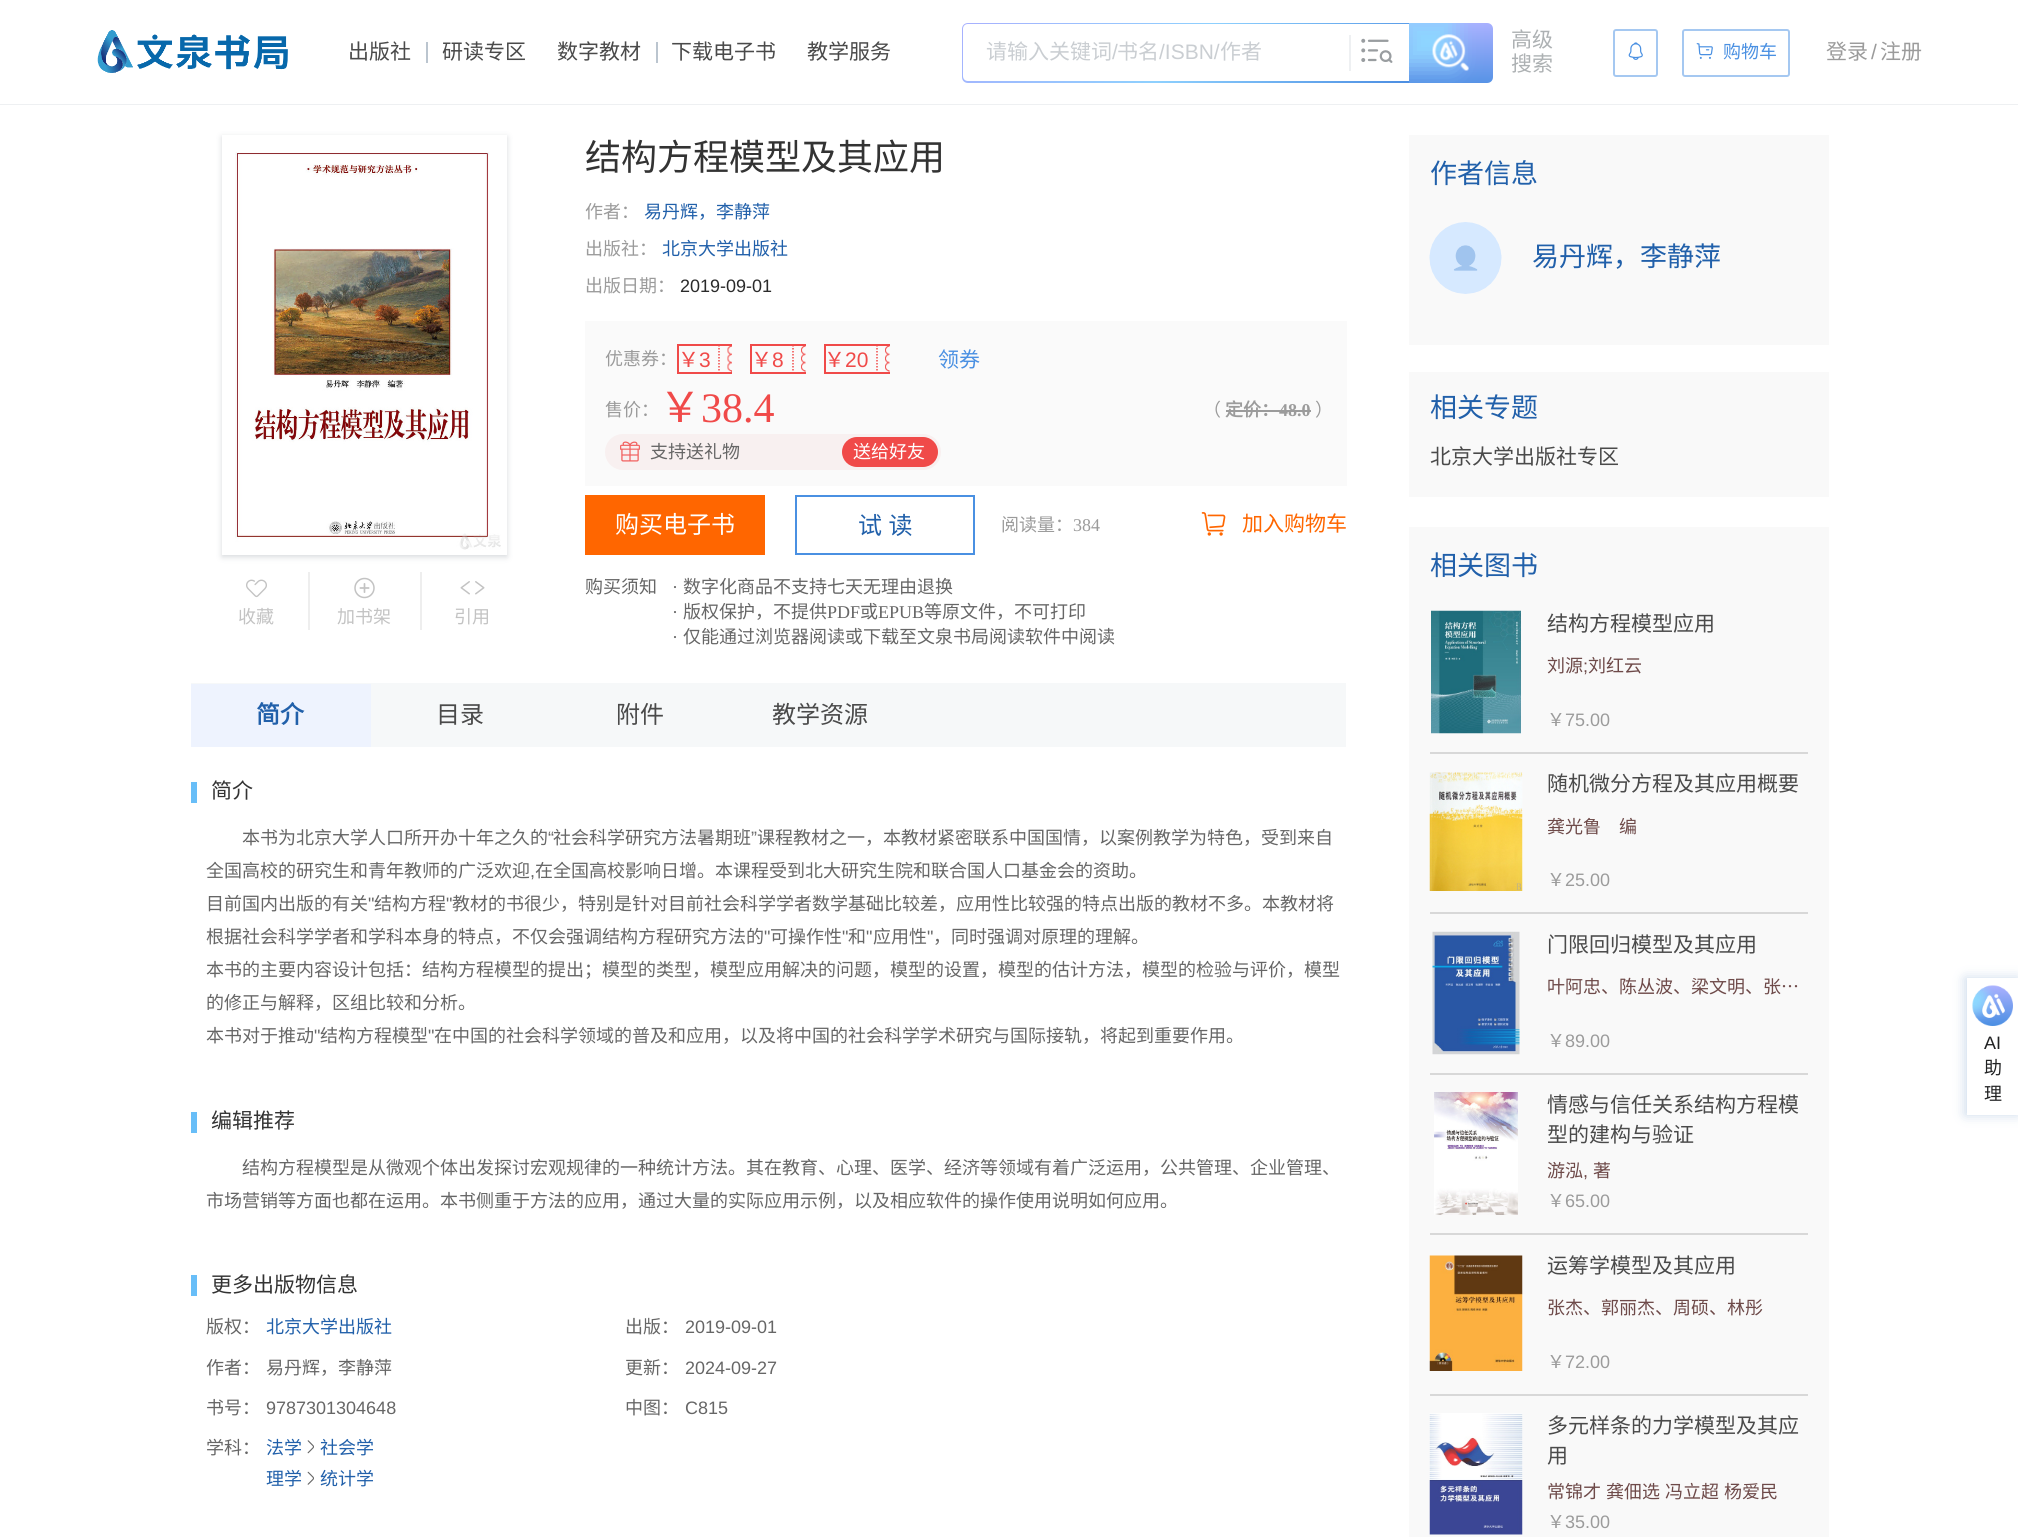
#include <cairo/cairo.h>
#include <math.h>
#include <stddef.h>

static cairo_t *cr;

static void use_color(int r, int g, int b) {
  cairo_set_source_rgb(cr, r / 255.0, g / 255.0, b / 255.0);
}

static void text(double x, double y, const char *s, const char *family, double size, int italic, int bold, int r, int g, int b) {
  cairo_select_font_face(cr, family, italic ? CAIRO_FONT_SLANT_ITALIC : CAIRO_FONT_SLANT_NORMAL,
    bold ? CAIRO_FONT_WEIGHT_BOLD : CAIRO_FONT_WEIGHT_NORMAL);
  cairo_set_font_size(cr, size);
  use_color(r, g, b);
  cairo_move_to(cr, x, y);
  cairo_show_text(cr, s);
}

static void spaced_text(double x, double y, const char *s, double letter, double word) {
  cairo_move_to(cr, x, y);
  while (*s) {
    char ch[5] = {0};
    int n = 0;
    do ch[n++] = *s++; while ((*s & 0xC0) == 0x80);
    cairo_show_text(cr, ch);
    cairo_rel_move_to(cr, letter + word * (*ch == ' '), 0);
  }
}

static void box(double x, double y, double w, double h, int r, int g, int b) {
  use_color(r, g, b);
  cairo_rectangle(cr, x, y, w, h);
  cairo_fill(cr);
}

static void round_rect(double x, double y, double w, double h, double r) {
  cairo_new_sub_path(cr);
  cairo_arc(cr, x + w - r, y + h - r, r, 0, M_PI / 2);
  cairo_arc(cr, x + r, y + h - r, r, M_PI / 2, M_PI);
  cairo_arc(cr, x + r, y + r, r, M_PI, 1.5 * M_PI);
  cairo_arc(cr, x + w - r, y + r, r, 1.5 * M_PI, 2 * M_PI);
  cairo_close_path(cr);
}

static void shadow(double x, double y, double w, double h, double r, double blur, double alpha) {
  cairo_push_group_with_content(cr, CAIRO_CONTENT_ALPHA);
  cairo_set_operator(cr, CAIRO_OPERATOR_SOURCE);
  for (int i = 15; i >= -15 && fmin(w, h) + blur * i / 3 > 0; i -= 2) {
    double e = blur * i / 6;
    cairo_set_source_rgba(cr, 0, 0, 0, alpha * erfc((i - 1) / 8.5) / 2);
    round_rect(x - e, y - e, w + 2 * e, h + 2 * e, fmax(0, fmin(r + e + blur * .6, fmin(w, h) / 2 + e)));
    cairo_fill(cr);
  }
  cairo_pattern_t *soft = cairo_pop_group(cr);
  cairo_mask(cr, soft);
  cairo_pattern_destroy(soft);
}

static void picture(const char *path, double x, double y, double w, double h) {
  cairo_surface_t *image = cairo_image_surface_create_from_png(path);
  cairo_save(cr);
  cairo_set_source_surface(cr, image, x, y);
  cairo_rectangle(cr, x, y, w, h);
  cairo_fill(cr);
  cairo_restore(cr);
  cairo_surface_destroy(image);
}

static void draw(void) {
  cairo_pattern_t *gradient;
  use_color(255, 255, 255);
  cairo_paint(cr);
  box(0, 104, 2018, 1, 238, 240, 242);
  picture("img_01.png", 97, 30, 191, 43);
  box(426, 42, 2, 21, 187, 197, 207);
  box(656, 42, 2, 21, 187, 197, 207);
  gradient = cairo_pattern_create_linear(1058, -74, 1312, 179);
  cairo_pattern_add_color_stop_rgba(gradient, 0, 0.659, 0.69, 0.996, 1);
  cairo_pattern_add_color_stop_rgba(gradient, 0.5, 0.557, 0.816, 0.996, 1);
  cairo_pattern_add_color_stop_rgba(gradient, 1, 0.298, 0.557, 0.886, 1);
  cairo_set_source(cr, gradient);
  cairo_pattern_destroy(gradient);
  cairo_new_path(cr);
  cairo_move_to(cr, 968, 23);
  cairo_line_to(cr, 1409, 23);
  cairo_line_to(cr, 1409, 83);
  cairo_line_to(cr, 968, 83);
  cairo_curve_to(cr, 964.5, 83, 962, 80.5, 962, 77);
  cairo_line_to(cr, 962, 29);
  cairo_curve_to(cr, 962, 25.5, 964.5, 23, 968, 23);
  cairo_close_path(cr);
  cairo_fill(cr);
  use_color(255, 255, 255);
  cairo_new_path(cr);
  cairo_move_to(cr, 968, 24);
  cairo_line_to(cr, 1409, 24);
  cairo_line_to(cr, 1409, 81);
  cairo_line_to(cr, 968, 81);
  cairo_curve_to(cr, 965, 81, 963, 79, 963, 76);
  cairo_line_to(cr, 963, 29);
  cairo_curve_to(cr, 963, 26, 965, 24, 968, 24);
  cairo_close_path(cr);
  cairo_fill(cr);
  gradient = cairo_pattern_create_linear(1451, 22, 1451, 83);
  cairo_pattern_add_color_stop_rgba(gradient, 0, 0.667, 0.694, 1, 1);
  cairo_pattern_add_color_stop_rgba(gradient, 1, 0.341, 0.576, 0.902, 1);
  cairo_set_source(cr, gradient);
  cairo_pattern_destroy(gradient);
  cairo_new_path(cr);
  cairo_move_to(cr, 1409, 23);
  cairo_line_to(cr, 1487, 23);
  cairo_curve_to(cr, 1490.5, 23, 1493, 25.5, 1493, 29);
  cairo_line_to(cr, 1493, 77);
  cairo_curve_to(cr, 1493, 80.5, 1490.5, 83, 1487, 83);
  cairo_line_to(cr, 1409, 83);
  cairo_close_path(cr);
  cairo_fill(cr);
  cairo_save(cr);
  cairo_rectangle(cr, 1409, 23, 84, 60);
  cairo_clip(cr);
  use_color(142, 214, 255);
  shadow(1403, 17, 51, 48, 0, 12, 1);
  cairo_restore(cr);
  picture("img_02.png", 1432, 34, 37, 37);
  box(1349, 35, 2, 36, 238, 240, 242);
  picture("img_03.png", 1361, 38, 32, 25);
  round_rect(1614, 30, 43, 46, 2);
  use_color(165, 200, 241);
  cairo_stroke(cr);
  picture("img_04.png", 1628, 42, 15, 18);
  round_rect(1683, 30, 106, 46, 2);
  cairo_stroke(cr);
  picture("img_05.png", 1696, 43, 17, 16);
  picture("img_06.png", 235, 152, 266, 398);
  cairo_save(cr);
  cairo_set_fill_rule(cr, CAIRO_FILL_RULE_EVEN_ODD);
  cairo_new_path(cr);
  cairo_move_to(cr, 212, 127);
  cairo_line_to(cr, 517, 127);
  cairo_line_to(cr, 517, 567);
  cairo_line_to(cr, 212, 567);
  cairo_close_path(cr);
  cairo_move_to(cr, 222, 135);
  cairo_line_to(cr, 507, 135);
  cairo_line_to(cr, 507, 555);
  cairo_line_to(cr, 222, 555);
  cairo_close_path(cr);
  cairo_clip(cr);
  use_color(32, 48, 65);
  shadow(222, 137, 285, 420, 0, 3, 0.18);
  cairo_restore(cr);
  picture("img_07.png", 246, 579, 21, 19);
  box(420, 572, 2, 58, 238, 238, 238);
  box(308, 572, 2, 58, 238, 238, 238);
  picture("img_08.png", 354, 577, 21, 22);
  picture("img_09.png", 460, 581, 25, 14);
  box(585, 321, 762, 165, 250, 250, 250);
  box(677, 344, 55, 2, 240, 74, 73);
  box(677, 372, 55, 2, 240, 74, 73);
  box(677, 344, 2, 30, 240, 74, 73);
  cairo_new_path(cr);
  cairo_move_to(cr, 719, 345);
  cairo_line_to(cr, 719, 372);
  cairo_set_line_width(cr, 1.5);
  cairo_set_dash(cr, (double[]){1.5, 1.5}, 2, 0);
  cairo_stroke(cr);
  picture("img_10.png", 727, 346, 5, 26);
  box(750, 344, 56, 2, 240, 74, 73);
  box(750, 372, 56, 2, 240, 74, 73);
  box(750, 344, 2, 30, 240, 74, 73);
  cairo_new_path(cr);
  cairo_move_to(cr, 793, 345);
  cairo_line_to(cr, 793, 372);
  cairo_stroke(cr);
  picture("img_11.png", 801, 346, 5, 26);
  box(824, 344, 66, 2, 240, 74, 73);
  box(824, 372, 66, 2, 240, 74, 73);
  box(824, 344, 2, 30, 240, 74, 73);
  cairo_new_path(cr);
  cairo_move_to(cr, 877, 345);
  cairo_line_to(cr, 877, 372);
  cairo_stroke(cr);
  picture("img_11.png", 885, 346, 5, 26);
  box(1226, 410, 85, 2, 155, 155, 155);
  use_color(248, 240, 240);
  round_rect(605, 434, 336, 36, 18);
  cairo_fill(cr);
  picture("img_12.png", 620, 441, 20, 21);
  use_color(240, 74, 73);
  round_rect(842, 437, 96, 30, 15);
  cairo_fill(cr);
  box(585, 495, 180, 60, 255, 102, 0);
  cairo_rectangle(cr, 796, 496, 178, 58);
  use_color(74, 144, 226);
  cairo_set_line_width(cr, 2);
  cairo_set_dash(cr, NULL, 0, 0);
  cairo_stroke(cr);
  picture("img_13.png", 1201, 512, 25, 24);
  box(191, 683, 1155, 64, 246, 248, 249);
  box(191, 684, 180, 63, 238, 243, 254);
  box(191, 782, 6, 21, 104, 190, 248);
  box(191, 1112, 6, 21, 104, 190, 248);
  box(191, 1275, 6, 21, 104, 190, 248);
  picture("img_14.png", 307, 1440, 7, 14);
  picture("img_15.png", 307, 1471, 7, 14);
  box(1409, 135, 420, 210, 249, 249, 249);
  picture("img_16.png", 1429, 222, 73, 72);
  box(1409, 372, 420, 125, 249, 249, 249);
  box(1409, 527, 420, 1010, 249, 249, 249);
  picture("img_17.png", 1431, 610, 90, 124);
  box(1430, 752, 378, 2, 216, 216, 216);
  picture("img_18.png", 1429, 772, 94, 119);
  box(1430, 912, 378, 2, 216, 216, 216);
  picture("img_19.png", 1432, 931, 88, 124);
  box(1430, 1073, 378, 2, 216, 216, 216);
  picture("img_20.png", 1434, 1092, 84, 123);
  box(1430, 1233, 378, 2, 216, 216, 216);
  picture("img_21.png", 1429, 1255, 94, 116);
  box(1430, 1394, 378, 2, 216, 216, 216);
  picture("img_22.png", 1429, 1413, 94, 122);
  use_color(32, 97, 170);
  shadow(1965, 978, 53, 137, 0, 6, 0.23);
  box(1967, 978, 51, 137, 255, 255, 255);
  picture("img_23.png", 1972, 985, 41, 41);
  text(348, 59, "出版社", "Noto Sans CJK SC", 21, 0, 0, 74, 74, 74);
  text(442, 59, "研读专区", "Noto Sans CJK SC", 21, 0, 0, 74, 74, 74);
  text(557, 59, "数字教材", "Noto Sans CJK SC", 21, 0, 0, 74, 74, 74);
  text(671, 59, "下载电子书", "Noto Sans CJK SC", 21, 0, 0, 74, 74, 74);
  text(807, 59, "教学服务", "Noto Sans CJK SC", 21, 0, 0, 74, 74, 74);
  text(986, 59, "请输入关键词", "Noto Sans CJK SC", 21, 0, 0, 202, 206, 210);
  text(1112, 59, "/", "Liberation Sans", 21, 0, 0, 202, 206, 210);
  text(1117, 59, "书名", "Noto Sans CJK SC", 21, 0, 0, 202, 206, 210);
  text(1159, 59, "/ISBN/", "Liberation Sans", 21, 0, 0, 202, 206, 210);
  text(1220, 59, "作者", "Noto Sans CJK SC", 21, 0, 0, 202, 206, 210);
  text(1511, 47, "高级", "Noto Sans CJK SC", 21, 0, 0, 173, 177, 179);
  text(1511, 71, "搜索", "Noto Sans CJK SC", 21, 0, 0, 173, 177, 179);
  text(1723, 58, "购物车", "Noto Sans CJK SC", 18, 0, 0, 74, 144, 226);
  text(1826, 59, "登录", "Noto Sans CJK SC", 21, 0, 0, 155, 155, 155);
  text(1871, 59, "/", "Liberation Sans", 21, 0, 0, 155, 155, 155);
  text(1880, 59, "注册", "Noto Sans CJK SC", 21, 0, 0, 155, 155, 155);
  text(238, 623, "收藏", "Noto Sans CJK SC", 18, 0, 0, 195, 195, 195);
  text(337, 623, "加书架", "Noto Sans CJK SC", 18, 0, 0, 195, 195, 195);
  text(454, 623, "引用", "Noto Sans CJK SC", 18, 0, 0, 195, 195, 195);
  text(585, 170, "结构方程模型及其应用", "Noto Sans CJK SC", 36, 0, 0, 51, 51, 51);
  text(585, 218, "作者：", "Noto Sans CJK SC", 18, 0, 0, 155, 155, 155);
  text(644, 218, "易丹辉，李静萍", "Noto Sans CJK SC", 18, 0, 0, 33, 96, 170);
  text(585, 255, "出版社：", "Noto Sans CJK SC", 18, 0, 0, 155, 155, 155);
  text(662, 255, "北京大学出版社", "Noto Sans CJK SC", 18, 0, 0, 33, 96, 170);
  text(585, 292, "出版日期：", "Noto Sans CJK SC", 18, 0, 0, 155, 155, 155);
  text(680, 292, "2019-09-01", "Liberation Sans", 18, 0, 0, 42, 42, 42);
  text(605, 365, "优惠券：", "Noto Sans CJK SC", 18, 0, 0, 155, 155, 155);
  text(678, 367, "￥", "Noto Sans CJK SC", 21, 0, 0, 240, 74, 73);
  text(699, 367, "3", "Liberation Sans", 21, 0, 0, 240, 74, 73);
  text(751, 367, "￥", "Noto Sans CJK SC", 21, 0, 0, 240, 74, 73);
  text(772, 367, "8", "Liberation Sans", 21, 0, 0, 240, 74, 73);
  text(824, 367, "￥", "Noto Sans CJK SC", 21, 0, 0, 240, 74, 73);
  text(845, 367, "20", "Liberation Sans", 21, 0, 0, 240, 74, 73);
  text(938, 367, "领券", "Noto Sans CJK SC", 21, 0, 0, 74, 144, 226);
  text(605, 416, "售价：", "Noto Sans CJK SC", 18, 0, 0, 155, 155, 155);
  text(659, 422, "￥", "Noto Sans CJK SC", 42, 0, 0, 240, 74, 73);
  text(701, 422, "38.4", "Liberation Serif", 42, 0, 0, 240, 74, 73);
  text(1203, 416, "（", "Noto Sans CJK SC", 18, 0, 0, 155, 155, 155);
  text(1225, 416, "定价：", "Noto Sans CJK SC", 18, 0, 1, 155, 155, 155);
  text(1279, 416, "48.0", "Liberation Serif", 18, 0, 1, 155, 155, 155);
  text(1315, 416, "）", "Noto Sans CJK SC", 18, 0, 0, 155, 155, 155);
  text(650, 458, "支持送礼物", "Noto Sans CJK SC", 18, 0, 0, 102, 102, 102);
  text(853, 458, "送给好友", "Noto Sans CJK SC", 18, 0, 0, 255, 255, 255);
  text(615, 533, "购买电子书", "Noto Sans CJK SC", 24, 0, 0, 255, 255, 255);
  use_color(33, 96, 170);
  spaced_text(858, 534, "试 读", 0, 1);
  text(1001, 531, "阅读量：", "Noto Sans CJK SC", 18, 0, 0, 155, 155, 155);
  text(1073, 531, "384", "Liberation Serif", 18, 0, 0, 155, 155, 155);
  text(1242, 531, "加入购物车", "Noto Sans CJK SC", 21, 0, 0, 255, 102, 0);
  text(585, 593, "购买须知", "Noto Sans CJK SC", 18, 0, 0, 102, 102, 102);
  text(672, 593, "·", "Liberation Serif", 18, 0, 0, 102, 102, 102);
  text(683, 593, "数字化商品不支持七天无理由退换", "Noto Sans CJK SC", 18, 0, 0, 102, 102, 102);
  text(672, 618, "·", "Liberation Serif", 18, 0, 0, 102, 102, 102);
  text(683, 618, "版权保护，不提供", "Noto Sans CJK SC", 18, 0, 0, 102, 102, 102);
  text(827, 618, "PDF", "Liberation Serif", 18, 0, 0, 102, 102, 102);
  text(860, 618, "或", "Noto Sans CJK SC", 18, 0, 0, 102, 102, 102);
  text(878, 618, "EPUB", "Liberation Serif", 18, 0, 0, 102, 102, 102);
  text(924, 618, "等原文件，不可打印", "Noto Sans CJK SC", 18, 0, 0, 102, 102, 102);
  text(672, 643, "·", "Liberation Serif", 18, 0, 0, 102, 102, 102);
  text(683, 643, "仅能通过浏览器阅读或下载至文泉书局阅读软件中阅读", "Noto Sans CJK SC", 18, 0, 0, 102, 102, 102);
  text(256, 723, "简介", "Noto Sans CJK SC", 24, 0, 1, 33, 96, 170);
  text(436, 723, "目录", "Noto Sans CJK SC", 24, 0, 0, 74, 74, 74);
  text(616, 723, "附件", "Noto Sans CJK SC", 24, 0, 0, 74, 74, 74);
  text(772, 723, "教学资源", "Noto Sans CJK SC", 24, 0, 0, 74, 74, 74);
  text(211, 798, "简介", "Noto Sans CJK SC", 21, 0, 0, 51, 51, 51);
  text(242, 844, "本书为北京大学人口所开办十年之久的", "Noto Sans CJK SC", 18, 0, 0, 102, 102, 102);
  text(548, 844, "“", "Liberation Sans", 18, 0, 0, 102, 102, 102);
  text(553, 844, "社会科学研究方法暑期班", "Noto Sans CJK SC", 18, 0, 0, 102, 102, 102);
  text(751, 844, "”", "Liberation Sans", 18, 0, 0, 102, 102, 102);
  text(757, 844, "课程教材之一，本教材紧密联系中国国情，以案例教学为特色，受到来自", "Noto Sans CJK SC", 18, 0, 0, 102, 102, 102);
  text(206, 877, "全国高校的研究生和青年教师的广泛欢迎", "Noto Sans CJK SC", 18, 0, 0, 102, 102, 102);
  text(530, 877, ",", "Liberation Sans", 18, 0, 0, 102, 102, 102);
  text(535, 877, "在全国高校影响日增。本课程受到北大研究生院和联合国人口基金会的资助。", "Noto Sans CJK SC", 18, 0, 0, 102, 102, 102);
  text(206, 910, "目前国内出版的有关", "Noto Sans CJK SC", 18, 0, 0, 102, 102, 102);
  text(368, 910, "\"", "Liberation Sans", 18, 0, 0, 102, 102, 102);
  text(374, 910, "结构方程", "Noto Sans CJK SC", 18, 0, 0, 102, 102, 102);
  text(446, 910, "\"", "Liberation Sans", 18, 0, 0, 102, 102, 102);
  text(452, 910, "教材的书很少，特别是针对目前社会科学学者数学基础比较差，应用性比较强的特点出版的教材不多。本教材将", "Noto Sans CJK SC", 18, 0, 0, 102, 102, 102);
  text(206, 943, "根据社会科学学者和学科本身的特点，不仅会强调结构方程研究方法的", "Noto Sans CJK SC", 18, 0, 0, 102, 102, 102);
  text(764, 943, "\"", "Liberation Sans", 18, 0, 0, 102, 102, 102);
  text(770, 943, "可操作性", "Noto Sans CJK SC", 18, 0, 0, 102, 102, 102);
  text(842, 943, "\"", "Liberation Sans", 18, 0, 0, 102, 102, 102);
  text(848, 943, "和", "Noto Sans CJK SC", 18, 0, 0, 102, 102, 102);
  text(866, 943, "\"", "Liberation Sans", 18, 0, 0, 102, 102, 102);
  text(873, 943, "应用性", "Noto Sans CJK SC", 18, 0, 0, 102, 102, 102);
  text(927, 943, "\"", "Liberation Sans", 18, 0, 0, 102, 102, 102);
  text(933, 943, "，同时强调对原理的理解。", "Noto Sans CJK SC", 18, 0, 0, 102, 102, 102);
  text(206, 976, "本书的主要内容设计包括：结构方程模型的提出；模型的类型，模型应用解决的问题，模型的设置，模型的估计方法，模型的检验与评价，模型", "Noto Sans CJK SC", 18, 0, 0, 102, 102, 102);
  text(206, 1009, "的修正与解释，区组比较和分析。", "Noto Sans CJK SC", 18, 0, 0, 102, 102, 102);
  text(206, 1042, "本书对于推动", "Noto Sans CJK SC", 18, 0, 0, 102, 102, 102);
  text(314, 1042, "\"", "Liberation Sans", 18, 0, 0, 102, 102, 102);
  text(320, 1042, "结构方程模型", "Noto Sans CJK SC", 18, 0, 0, 102, 102, 102);
  text(428, 1042, "\"", "Liberation Sans", 18, 0, 0, 102, 102, 102);
  text(434, 1042, "在中国的社会科学领域的普及和应用，以及将中国的社会科学学术研究与国际接轨，将起到重要作用。", "Noto Sans CJK SC", 18, 0, 0, 102, 102, 102);
  text(211, 1128, "编辑推荐", "Noto Sans CJK SC", 21, 0, 0, 51, 51, 51);
  text(242, 1174, "结构方程模型是从微观个体出发探讨宏观规律的一种统计方法。其在教育、心理、医学、经济等领域有着广泛运用，公共管理、企业管理、", "Noto Sans CJK SC", 18, 0, 0, 102, 102, 102);
  text(206, 1207, "市场营销等方面也都在运用。本书侧重于方法的应用，通过大量的实际应用示例，以及相应软件的操作使用说明如何应用。", "Noto Sans CJK SC", 18, 0, 0, 102, 102, 102);
  text(211, 1292, "更多出版物信息", "Noto Sans CJK SC", 21, 0, 0, 51, 51, 51);
  text(206, 1333, "版权：", "Noto Sans CJK SC", 18, 0, 0, 102, 102, 102);
  text(266, 1333, "北京大学出版社", "Noto Sans CJK SC", 18, 0, 0, 33, 96, 170);
  text(625, 1333, "出版：", "Noto Sans CJK SC", 18, 0, 0, 102, 102, 102);
  text(685, 1333, "2019-09-01", "Liberation Sans", 18, 0, 0, 102, 102, 102);
  text(206, 1374, "作者：", "Noto Sans CJK SC", 18, 0, 0, 102, 102, 102);
  text(266, 1374, "易丹辉，李静萍", "Noto Sans CJK SC", 18, 0, 0, 102, 102, 102);
  text(625, 1374, "更新：", "Noto Sans CJK SC", 18, 0, 0, 102, 102, 102);
  text(685, 1374, "2024-09-27", "Liberation Sans", 18, 0, 0, 102, 102, 102);
  text(206, 1414, "书号：", "Noto Sans CJK SC", 18, 0, 0, 102, 102, 102);
  text(266, 1414, "9787301304648", "Liberation Sans", 18, 0, 0, 102, 102, 102);
  text(625, 1414, "中图：", "Noto Sans CJK SC", 18, 0, 0, 102, 102, 102);
  text(685, 1414, "C815", "Liberation Sans", 18, 0, 0, 102, 102, 102);
  text(206, 1454, "学科：", "Noto Sans CJK SC", 18, 0, 0, 102, 102, 102);
  text(266, 1454, "法学", "Noto Sans CJK SC", 18, 0, 0, 33, 96, 170);
  text(320, 1454, "社会学", "Noto Sans CJK SC", 18, 0, 0, 33, 96, 170);
  text(266, 1485, "理学", "Noto Sans CJK SC", 18, 0, 0, 33, 96, 170);
  text(320, 1485, "统计学", "Noto Sans CJK SC", 18, 0, 0, 33, 96, 170);
  text(1430, 183, "作者信息", "Noto Sans CJK SC", 27, 0, 0, 33, 96, 170);
  text(1532, 266, "易丹辉，李静萍", "Noto Sans CJK SC", 27, 0, 0, 33, 96, 170);
  text(1430, 417, "相关专题", "Noto Sans CJK SC", 27, 0, 0, 33, 96, 170);
  text(1430, 464, "北京大学出版社专区", "Noto Sans CJK SC", 21, 0, 0, 74, 74, 74);
  text(1430, 575, "相关图书", "Noto Sans CJK SC", 27, 0, 0, 33, 96, 170);
  text(1547, 631, "结构方程模型应用", "Noto Sans CJK SC", 21, 0, 0, 74, 74, 74);
  text(1547, 672, "刘源", "Noto Sans CJK SC", 18, 0, 0, 110, 74, 73);
  text(1583, 672, ";", "Liberation Sans", 18, 0, 0, 110, 74, 73);
  text(1588, 672, "刘红云", "Noto Sans CJK SC", 18, 0, 0, 110, 74, 73);
  text(1547, 726, "￥", "Noto Sans CJK SC", 18, 0, 0, 155, 155, 155);
  text(1565, 726, "75.00", "Liberation Sans", 18, 0, 0, 155, 155, 155);
  text(1547, 791, "随机微分方程及其应用概要", "Noto Sans CJK SC", 21, 0, 0, 74, 74, 74);
  text(1547, 833, "龚光鲁　编", "Noto Sans CJK SC", 18, 0, 0, 110, 74, 73);
  text(1547, 886, "￥", "Noto Sans CJK SC", 18, 0, 0, 155, 155, 155);
  text(1565, 886, "25.00", "Liberation Sans", 18, 0, 0, 155, 155, 155);
  text(1547, 952, "门限回归模型及其应用", "Noto Sans CJK SC", 21, 0, 0, 74, 74, 74);
  text(1547, 993, "叶阿忠、陈丛波、梁文明、张…", "Noto Sans CJK SC", 18, 0, 0, 110, 74, 73);
  text(1547, 1047, "￥", "Noto Sans CJK SC", 18, 0, 0, 155, 155, 155);
  text(1565, 1047, "89.00", "Liberation Sans", 18, 0, 0, 155, 155, 155);
  text(1547, 1112, "情感与信任关系结构方程模", "Noto Sans CJK SC", 21, 0, 0, 74, 74, 74);
  text(1547, 1142, "型的建构与验证", "Noto Sans CJK SC", 21, 0, 0, 74, 74, 74);
  text(1547, 1177, "游泓", "Noto Sans CJK SC", 18, 0, 0, 110, 74, 73);
  text(1583, 1177, ",", "Liberation Sans", 18, 0, 0, 110, 74, 73);
  text(1593, 1177, "著", "Noto Sans CJK SC", 18, 0, 0, 110, 74, 73);
  text(1547, 1207, "￥", "Noto Sans CJK SC", 18, 0, 0, 155, 155, 155);
  text(1565, 1207, "65.00", "Liberation Sans", 18, 0, 0, 155, 155, 155);
  text(1547, 1273, "运筹学模型及其应用", "Noto Sans CJK SC", 21, 0, 0, 74, 74, 74);
  text(1547, 1314, "张杰、郭丽杰、周硕、林彤", "Noto Sans CJK SC", 18, 0, 0, 110, 74, 73);
  text(1547, 1368, "￥", "Noto Sans CJK SC", 18, 0, 0, 155, 155, 155);
  text(1565, 1368, "72.00", "Liberation Sans", 18, 0, 0, 155, 155, 155);
  text(1547, 1433, "多元样条的力学模型及其应", "Noto Sans CJK SC", 21, 0, 0, 74, 74, 74);
  text(1547, 1463, "用", "Noto Sans CJK SC", 21, 0, 0, 74, 74, 74);
  cairo_set_font_size(cr, 18);
  use_color(110, 74, 73);
  spaced_text(1547, 1498, "常锦才 龚佃选 冯立超 杨爱民", 0, 1);
  text(1547, 1528, "￥", "Noto Sans CJK SC", 18, 0, 0, 155, 155, 155);
  text(1565, 1528, "35.00", "Liberation Sans", 18, 0, 0, 155, 155, 155);
  text(1984, 1049, "AI", "Liberation Sans", 18, 0, 0, 33, 34, 35);
  text(1984, 1074, "助", "Noto Sans CJK SC", 18, 0, 0, 33, 34, 35);
  text(1984, 1100, "理", "Noto Sans CJK SC", 18, 0, 0, 33, 34, 35);
}

int main(void) {
  cairo_surface_t *surface = cairo_image_surface_create(CAIRO_FORMAT_RGB24, 2018, 1537);
  cr = cairo_create(surface);
  cairo_font_options_t *options = cairo_font_options_create();
  cairo_font_options_set_hint_metrics(options, CAIRO_HINT_METRICS_OFF);
  cairo_font_options_set_hint_style(options, CAIRO_HINT_STYLE_NONE);
  cairo_set_font_options(cr, options);
  cairo_set_miter_limit(cr, 4);
  draw();
  cairo_surface_write_to_png(surface, "out.png");
  cairo_font_options_destroy(options);
  cairo_destroy(cr);
  cairo_surface_destroy(surface);
  return 0;
}
